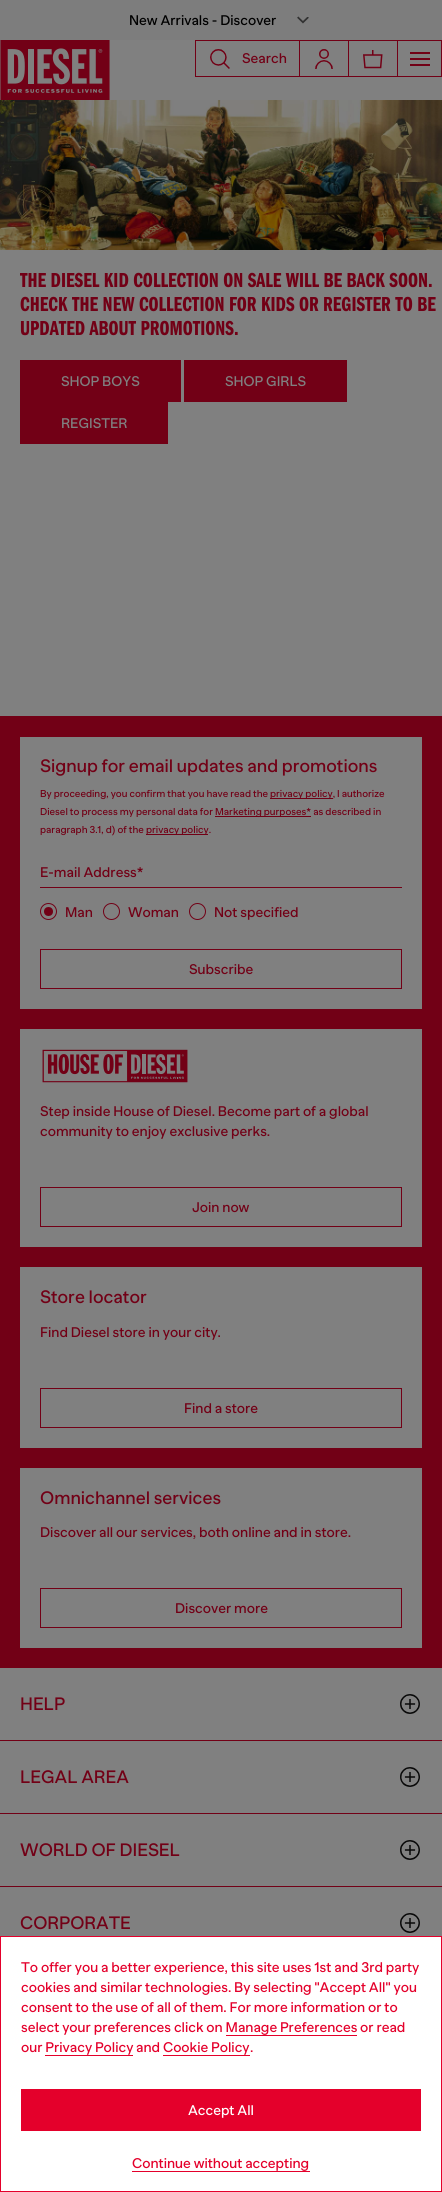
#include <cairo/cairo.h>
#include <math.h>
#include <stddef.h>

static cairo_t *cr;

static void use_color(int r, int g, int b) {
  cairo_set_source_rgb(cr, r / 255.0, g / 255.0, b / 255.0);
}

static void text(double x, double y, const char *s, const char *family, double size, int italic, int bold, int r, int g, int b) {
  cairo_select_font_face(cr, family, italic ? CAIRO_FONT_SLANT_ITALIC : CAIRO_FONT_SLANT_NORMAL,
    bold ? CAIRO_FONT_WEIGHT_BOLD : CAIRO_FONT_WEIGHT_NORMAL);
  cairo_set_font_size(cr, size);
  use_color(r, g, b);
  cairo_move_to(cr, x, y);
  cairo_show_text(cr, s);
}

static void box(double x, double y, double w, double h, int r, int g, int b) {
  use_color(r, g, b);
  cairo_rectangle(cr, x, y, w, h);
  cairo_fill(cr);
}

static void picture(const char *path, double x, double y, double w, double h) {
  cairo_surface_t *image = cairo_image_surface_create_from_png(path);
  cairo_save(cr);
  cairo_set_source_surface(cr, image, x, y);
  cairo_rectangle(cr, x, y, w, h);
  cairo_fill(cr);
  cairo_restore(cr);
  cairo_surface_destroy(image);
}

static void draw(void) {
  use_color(128, 128, 128);
  cairo_paint(cr);
  box(0, 0, 442, 40, 125, 125, 125);
  picture("img_01.png", 297, 16, 12, 8);
  picture("img_02.png", 0, 40, 110, 60);
  box(195, 40, 1, 37, 114, 0, 22);
  box(196, 40, 103, 1, 114, 0, 22);
  box(196, 76, 103, 1, 114, 0, 22);
  picture("img_03.png", 210, 49, 20, 20);
  box(299, 40, 1, 37, 114, 0, 22);
  box(300, 40, 48, 1, 114, 0, 22);
  box(300, 76, 48, 1, 114, 0, 22);
  picture("img_04.png", 315, 49, 18, 20);
  box(348, 40, 1, 37, 114, 0, 22);
  box(349, 40, 48, 1, 114, 0, 22);
  box(349, 76, 48, 1, 114, 0, 22);
  picture("img_05.png", 363, 50, 20, 19);
  cairo_rectangle(cr, 397.5, 40.5, 44, 36);
  cairo_set_line_width(cr, 1);
  cairo_stroke(cr);
  box(410, 52, 20, 2, 114, 0, 22);
  box(410, 58, 20, 2, 114, 0, 22);
  box(410, 64, 20, 2, 114, 0, 22);
  picture("img_06.png", 0, 100, 442, 150);
  box(20, 360, 161, 42, 114, 0, 22);
  box(184, 360, 163, 42, 114, 0, 22);
  box(20, 402, 148, 42, 114, 0, 22);
  box(0, 716, 442, 952, 114, 0, 22);
  box(20, 737, 402, 272, 128, 128, 128);
  box(270, 798, 63, 1, 114, 0, 22);
  box(215, 816, 96, 1, 114, 0, 22);
  box(146, 834, 62, 1, 114, 0, 22);
  box(40, 887, 362, 1, 114, 0, 22);
  cairo_arc(cr, 48.5, 911.5, 8, 0, 2 * M_PI);
  cairo_stroke(cr);
  cairo_arc(cr, 48.5, 911.5, 4.5, 0, 2 * M_PI);
  cairo_fill(cr);
  cairo_arc(cr, 111.5, 911.5, 8, 0, 2 * M_PI);
  cairo_stroke(cr);
  cairo_arc(cr, 197.5, 911.5, 8, 0, 2 * M_PI);
  cairo_stroke(cr);
  cairo_rectangle(cr, 40.5, 949.5, 361, 39);
  cairo_stroke(cr);
  box(20, 1029, 402, 218, 128, 128, 128);
  picture("img_07.png", 42, 1049, 146, 34);
  cairo_rectangle(cr, 40.5, 1187.5, 361, 39);
  use_color(114, 0, 22);
  cairo_stroke(cr);
  box(20, 1267, 402, 181, 128, 128, 128);
  cairo_rectangle(cr, 40.5, 1388.5, 361, 39);
  use_color(114, 0, 22);
  cairo_stroke(cr);
  box(20, 1468, 402, 180, 128, 128, 128);
  cairo_rectangle(cr, 40.5, 1588.5, 361, 39);
  use_color(114, 0, 22);
  cairo_stroke(cr);
  box(0, 1740, 442, 1, 114, 0, 22);
  picture("img_08.png", 400, 1694, 20, 20);
  box(0, 1813, 442, 1, 114, 0, 22);
  picture("img_09.png", 400, 1767, 20, 20);
  box(0, 1886, 442, 1, 114, 0, 22);
  picture("img_08.png", 400, 1840, 20, 20);
  picture("img_08.png", 400, 1913, 20, 20);
  cairo_rectangle(cr, 0.5, 1936.5, 441, 255);
  use_color(228, 0, 43);
  cairo_stroke(cr);
  box(1, 1937, 440, 254, 255, 255, 255);
  box(226, 2035, 131, 1, 228, 0, 43);
  box(45, 2055, 88, 1, 228, 0, 43);
  box(163, 2055, 87, 1, 228, 0, 43);
  box(21, 2089, 400, 42, 228, 0, 43);
  box(132, 2171, 178, 1, 228, 0, 43);
  text(129, 25, "New Arrivals - Discover", "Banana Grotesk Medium", 14, 0, 0, 0, 0, 0);
  text(242, 63, "Search", "Banana Grotesk Medium", 14, 0, 0, 114, 0, 22);
  text(20, 287, "THE DIESEL KID COLLECTION ON SALE WILL BE BACK SOON.", "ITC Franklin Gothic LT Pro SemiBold", 21, 0, 0, 114, 0, 22);
  text(20, 311, "CHECK THE NEW COLLECTION FOR KIDS OR REGISTER TO BE", "ITC Franklin Gothic LT Pro SemiBold", 21, 0, 0, 114, 0, 22);
  text(20, 335, "UPDATED ABOUT PROMOTIONS.", "ITC Franklin Gothic LT Pro SemiBold", 21, 0, 0, 114, 0, 22);
  text(61, 386, "SHOP BOYS", "Banana Grotesk Medium", 14, 0, 0, 128, 128, 128);
  text(225, 386, "SHOP GIRLS", "Banana Grotesk Medium", 14, 0, 0, 128, 128, 128);
  text(61, 428, "REGISTER", "Banana Grotesk Medium", 14, 0, 0, 128, 128, 128);
  text(40, 772, "Signup for email updates and promotions", "Banana Grotesk Medium", 18, 0, 0, 114, 0, 22);
  text(40, 797, "By proceeding, you confirm that you have read the", "Banana Grotesk Medium", 10, 0, 0, 114, 0, 22);
  text(270, 797, "privacy policy, I authorize", "Banana Grotesk Medium", 10, 0, 0, 114, 0, 22);
  text(40, 815, "Diesel to process my personal data for", "Banana Grotesk Medium", 10, 0, 0, 114, 0, 22);
  text(215, 815, "Marketing purposes* as described in", "Banana Grotesk Medium", 10, 0, 0, 114, 0, 22);
  text(40, 833, "paragraph 3.1, d) of the", "Banana Grotesk Medium", 10, 0, 0, 114, 0, 22);
  text(146, 833, "privacy policy.", "Banana Grotesk Medium", 10, 0, 0, 114, 0, 22);
  text(40, 877, "E-mail Address*", "Banana Grotesk Medium", 14, 0, 0, 114, 0, 22);
  text(65, 917, "Man", "Banana Grotesk Medium", 14, 0, 0, 114, 0, 22);
  text(128, 917, "Woman", "Banana Grotesk Medium", 14, 0, 0, 114, 0, 22);
  text(214, 917, "Not specified", "Banana Grotesk Medium", 14, 0, 0, 114, 0, 22);
  text(189, 974, "Subscribe", "Banana Grotesk Medium", 14, 0, 0, 114, 0, 22);
  text(40, 1116, "Step inside House of Diesel. Become part of a global", "Banana Grotesk Medium", 14, 0, 0, 114, 0, 22);
  text(40, 1136, "community to enjoy exclusive perks.", "Banana Grotesk Medium", 14, 0, 0, 114, 0, 22);
  text(192, 1212, "Join now", "Banana Grotesk Medium", 14, 0, 0, 114, 0, 22);
  text(40, 1303, "Store locator", "Banana Grotesk Medium", 18, 0, 0, 114, 0, 22);
  text(40, 1337, "Find Diesel store in your city.", "Banana Grotesk Medium", 14, 0, 0, 114, 0, 22);
  text(184, 1413, "Find a store", "Banana Grotesk Medium", 14, 0, 0, 114, 0, 22);
  text(40, 1504, "Omnichannel services", "Banana Grotesk Medium", 18, 0, 0, 114, 0, 22);
  text(40, 1537, "Discover all our services, both online and in store.", "Banana Grotesk Medium", 14, 0, 0, 114, 0, 22);
  text(175, 1613, "Discover more", "Banana Grotesk Medium", 14, 0, 0, 114, 0, 22);
  text(20, 1710, "HELP", "Banana Grotesk Medium", 18, 0, 0, 114, 0, 22);
  text(20, 1783, "LEGAL AREA", "Banana Grotesk Medium", 18, 0, 0, 114, 0, 22);
  text(20, 1856, "WORLD OF DIESEL", "Banana Grotesk Medium", 18, 0, 0, 114, 0, 22);
  text(20, 1929, "CORPORATE", "Banana Grotesk Medium", 18, 0, 0, 114, 0, 22);
  text(21, 1972, "To offer you a better experience, this site uses 1st and 3rd party", "Banana Grotesk Medium", 14, 0, 0, 228, 0, 43);
  text(21, 1992, "cookies and similar technologies. By selecting \"Accept All\" you", "Banana Grotesk Medium", 14, 0, 0, 228, 0, 43);
  text(21, 2012, "consent to the use of all of them. For more information or to", "Banana Grotesk Medium", 14, 0, 0, 228, 0, 43);
  text(21, 2032, "select your preferences click on Manage Preferences", "Banana Grotesk Medium", 14, 0, 0, 228, 0, 43);
  text(360, 2032, "or read", "Banana Grotesk Medium", 14, 0, 0, 228, 0, 43);
  text(21, 2052, "our Privacy Policy", "Banana Grotesk Medium", 14, 0, 0, 228, 0, 43);
  text(136, 2052, "and Cookie Policy", "Banana Grotesk Medium", 14, 0, 0, 228, 0, 43);
  text(250, 2052, ".", "Banana Grotesk Medium", 14, 0, 0, 228, 0, 43);
  text(188, 2115, "Accept All", "Banana Grotesk Medium", 14, 0, 0, 255, 255, 255);
  text(132, 2168, "Continue without accepting", "Banana Grotesk Medium", 14, 0, 0, 228, 0, 43);
}

int main(void) {
  cairo_surface_t *surface = cairo_image_surface_create(CAIRO_FORMAT_RGB24, 442, 2192);
  cr = cairo_create(surface);
  cairo_font_options_t *options = cairo_font_options_create();
  cairo_font_options_set_hint_metrics(options, CAIRO_HINT_METRICS_OFF);
  cairo_font_options_set_hint_style(options, CAIRO_HINT_STYLE_NONE);
  cairo_set_font_options(cr, options);
  cairo_set_miter_limit(cr, 4);
  draw();
  cairo_surface_write_to_png(surface, "out.png");
  cairo_font_options_destroy(options);
  cairo_destroy(cr);
  cairo_surface_destroy(surface);
  return 0;
}
